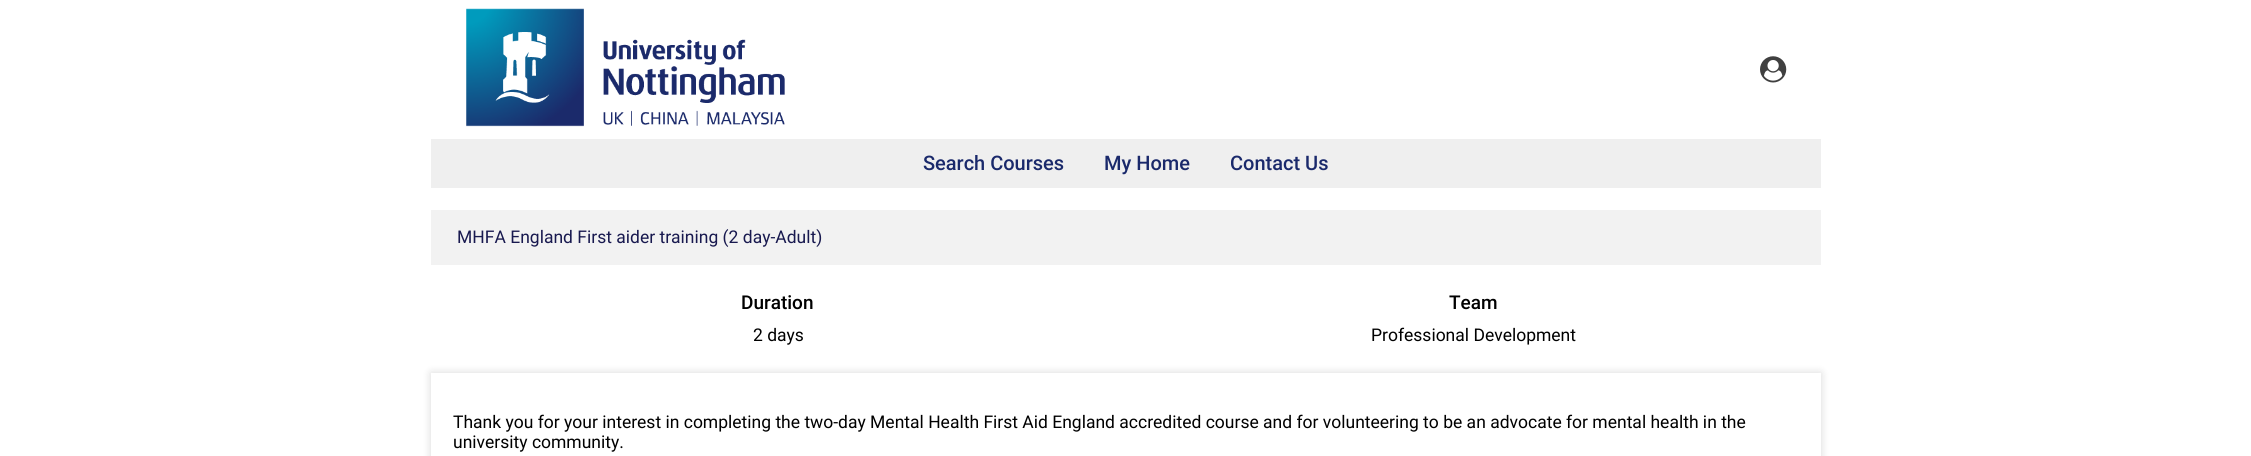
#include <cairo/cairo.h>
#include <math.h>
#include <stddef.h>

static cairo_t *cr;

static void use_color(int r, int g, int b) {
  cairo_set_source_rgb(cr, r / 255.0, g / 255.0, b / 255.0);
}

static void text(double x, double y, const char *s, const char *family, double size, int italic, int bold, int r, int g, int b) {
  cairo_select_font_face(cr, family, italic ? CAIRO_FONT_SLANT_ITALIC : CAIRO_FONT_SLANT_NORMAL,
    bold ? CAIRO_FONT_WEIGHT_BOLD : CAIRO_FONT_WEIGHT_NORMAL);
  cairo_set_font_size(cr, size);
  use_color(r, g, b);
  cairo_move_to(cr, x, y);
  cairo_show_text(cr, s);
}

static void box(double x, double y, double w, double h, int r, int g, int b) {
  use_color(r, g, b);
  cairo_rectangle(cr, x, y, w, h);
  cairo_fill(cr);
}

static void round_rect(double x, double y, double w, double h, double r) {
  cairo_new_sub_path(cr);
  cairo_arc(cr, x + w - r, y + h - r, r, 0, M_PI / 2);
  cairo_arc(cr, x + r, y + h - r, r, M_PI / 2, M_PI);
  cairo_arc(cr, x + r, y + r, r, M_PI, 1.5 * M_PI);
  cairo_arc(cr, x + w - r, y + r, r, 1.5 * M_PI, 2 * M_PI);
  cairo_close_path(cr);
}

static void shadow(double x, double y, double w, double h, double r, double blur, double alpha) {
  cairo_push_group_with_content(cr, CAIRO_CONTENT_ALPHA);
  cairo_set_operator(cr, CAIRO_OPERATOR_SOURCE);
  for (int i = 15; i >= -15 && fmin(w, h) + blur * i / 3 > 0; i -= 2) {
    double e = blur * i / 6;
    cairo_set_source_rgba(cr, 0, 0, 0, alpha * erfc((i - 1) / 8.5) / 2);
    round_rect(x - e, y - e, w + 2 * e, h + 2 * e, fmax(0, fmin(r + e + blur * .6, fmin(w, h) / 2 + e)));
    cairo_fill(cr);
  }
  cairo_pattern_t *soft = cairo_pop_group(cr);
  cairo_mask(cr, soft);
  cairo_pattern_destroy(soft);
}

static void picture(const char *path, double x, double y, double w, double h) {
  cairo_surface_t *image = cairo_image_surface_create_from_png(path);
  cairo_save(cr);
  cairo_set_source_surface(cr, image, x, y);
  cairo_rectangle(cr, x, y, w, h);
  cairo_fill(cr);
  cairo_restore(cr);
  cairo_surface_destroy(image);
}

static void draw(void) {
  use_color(255, 255, 255);
  cairo_paint(cr);
  picture("img_01.png", 466, 8, 319, 119);
  picture("img_02.png", 1760, 56, 27, 27);
  box(431, 139, 1390, 49, 239, 239, 239);
  box(431, 210, 1390, 55, 242, 242, 242);
  cairo_save(cr);
  cairo_set_fill_rule(cr, CAIRO_FILL_RULE_EVEN_ODD);
  cairo_new_path(cr);
  cairo_move_to(cr, 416, 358);
  cairo_line_to(cr, 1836, 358);
  cairo_line_to(cr, 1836, 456);
  cairo_line_to(cr, 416, 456);
  cairo_close_path(cr);
  cairo_move_to(cr, 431, 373);
  cairo_line_to(cr, 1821, 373);
  cairo_line_to(cr, 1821, 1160);
  cairo_line_to(cr, 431, 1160);
  cairo_close_path(cr);
  cairo_clip(cr);
  use_color(0, 0, 0);
  shadow(431, 373, 1390, 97, 0, 4.5, 0.15);
  cairo_restore(cr);
  text(923, 170, "Search Courses", "Roboto Medium", 20, 0, 0, 26, 41, 107);
  text(1104, 170, "My Home", "Roboto Medium", 20, 0, 0, 26, 41, 107);
  text(1230, 170, "Contact Us", "Roboto Medium", 20, 0, 0, 26, 41, 107);
  text(457, 243, "MHFA England First aider training (2 day-Adult)", "Roboto", 17.5, 0, 0, 24, 25, 79);
  text(741, 309, "Duration", "Roboto Medium", 19, 0, 0, 0, 0, 0);
  text(753, 341, "2 days", "Roboto", 17.5, 0, 0, 0, 0, 0);
  text(1449, 309, "Team", "Roboto Medium", 19, 0, 0, 0, 0, 0);
  text(1371, 341, "Professional Development", "Roboto", 17.5, 0, 0, 0, 0, 0);
  text(453, 428, "Thank you for your interest in completing the two-day Mental Health First Aid England accredited course and for volunteering to be an advocate for mental health in the", "Roboto", 17.5, 0, 0, 0, 0, 0);
  text(453, 448, "university community.", "Roboto", 17.5, 0, 0, 0, 0, 0);
}

int main(void) {
  cairo_surface_t *surface = cairo_image_surface_create(CAIRO_FORMAT_RGB24, 2251, 456);
  cr = cairo_create(surface);
  cairo_font_options_t *options = cairo_font_options_create();
  cairo_font_options_set_hint_metrics(options, CAIRO_HINT_METRICS_OFF);
  cairo_font_options_set_hint_style(options, CAIRO_HINT_STYLE_NONE);
  cairo_set_font_options(cr, options);
  cairo_set_miter_limit(cr, 4);
  draw();
  cairo_surface_write_to_png(surface, "out.png");
  cairo_font_options_destroy(options);
  cairo_destroy(cr);
  cairo_surface_destroy(surface);
  return 0;
}
